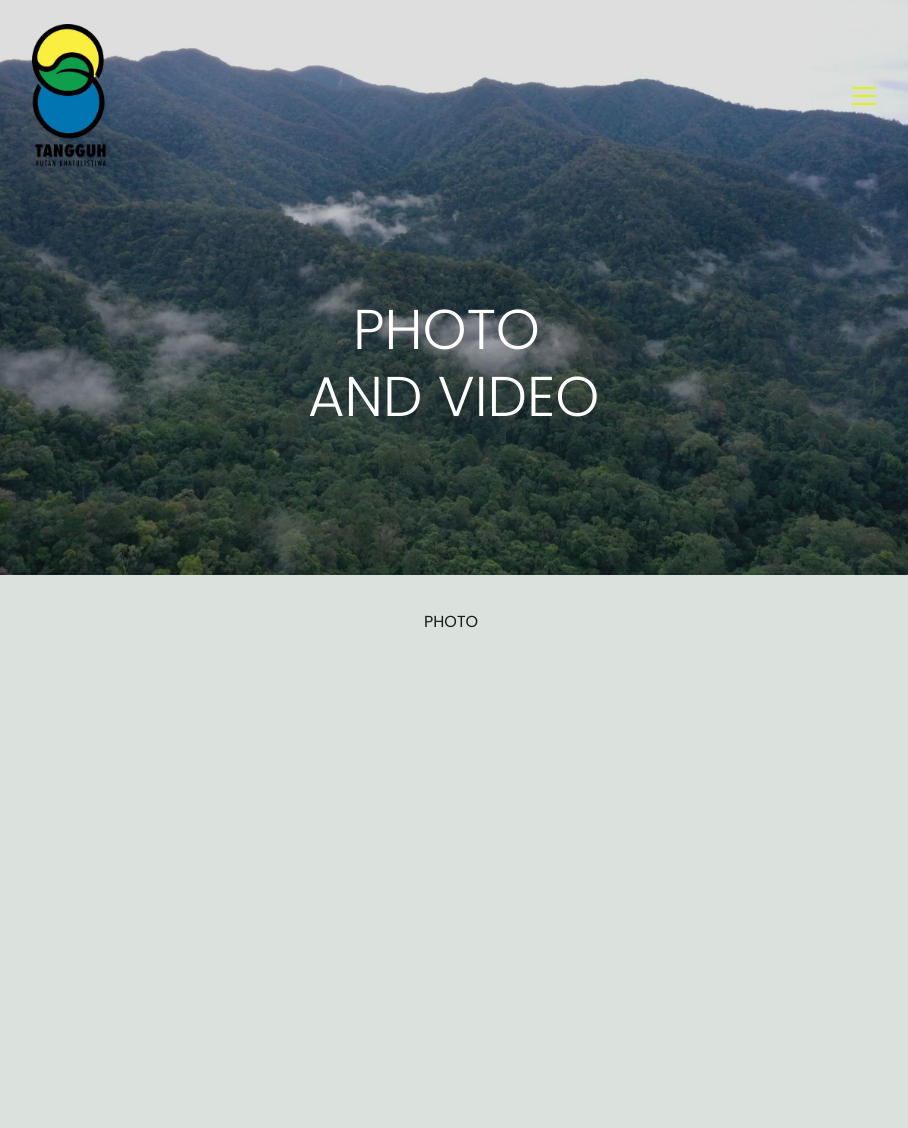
#include <cairo/cairo.h>
#include <math.h>
#include <stddef.h>

static cairo_t *cr;

static void use_color(int r, int g, int b) {
  cairo_set_source_rgb(cr, r / 255.0, g / 255.0, b / 255.0);
}

static void text(double x, double y, const char *s, const char *family, double size, int italic, int bold, int r, int g, int b) {
  cairo_select_font_face(cr, family, italic ? CAIRO_FONT_SLANT_ITALIC : CAIRO_FONT_SLANT_NORMAL,
    bold ? CAIRO_FONT_WEIGHT_BOLD : CAIRO_FONT_WEIGHT_NORMAL);
  cairo_set_font_size(cr, size);
  use_color(r, g, b);
  cairo_move_to(cr, x, y);
  cairo_show_text(cr, s);
}

static void box(double x, double y, double w, double h, int r, int g, int b) {
  use_color(r, g, b);
  cairo_rectangle(cr, x, y, w, h);
  cairo_fill(cr);
}

static void round_rect(double x, double y, double w, double h, double r) {
  cairo_new_sub_path(cr);
  cairo_arc(cr, x + w - r, y + h - r, r, 0, M_PI / 2);
  cairo_arc(cr, x + r, y + h - r, r, M_PI / 2, M_PI);
  cairo_arc(cr, x + r, y + r, r, M_PI, 1.5 * M_PI);
  cairo_arc(cr, x + w - r, y + r, r, 1.5 * M_PI, 2 * M_PI);
  cairo_close_path(cr);
}

static void picture(const char *path, double x, double y, double w, double h) {
  cairo_surface_t *image = cairo_image_surface_create_from_png(path);
  cairo_save(cr);
  cairo_set_source_surface(cr, image, x, y);
  cairo_rectangle(cr, x, y, w, h);
  cairo_fill(cr);
  cairo_restore(cr);
  cairo_surface_destroy(image);
}

static void draw(void) {
  use_color(255, 255, 255);
  cairo_paint(cr);
  picture("img_02.png", 0, 0, 908, 575);
  picture("img_01.png", 32, 24, 75, 143);
  use_color(223, 245, 7);
  round_rect(852, 87, 24, 2, 1);
  cairo_fill(cr);
  round_rect(852, 95, 24, 2, 1);
  cairo_fill(cr);
  round_rect(852, 103, 24, 2, 1);
  cairo_fill(cr);
  box(0, 575, 908, 553, 219, 226, 221);
  text(353, 349, "PHOTO", "Poppins Light", 56, 0, 0, 255, 255, 255);
  text(308, 416, "AND VIDEO", "Poppins Light", 56, 0, 0, 255, 255, 255);
  text(424, 627, "PHOTO", "Poppins", 16, 0, 0, 26, 26, 26);
}

int main(void) {
  cairo_surface_t *surface = cairo_image_surface_create(CAIRO_FORMAT_RGB24, 908, 1128);
  cr = cairo_create(surface);
  cairo_font_options_t *options = cairo_font_options_create();
  cairo_font_options_set_hint_metrics(options, CAIRO_HINT_METRICS_OFF);
  cairo_font_options_set_hint_style(options, CAIRO_HINT_STYLE_NONE);
  cairo_set_font_options(cr, options);
  cairo_set_miter_limit(cr, 4);
  draw();
  cairo_surface_write_to_png(surface, "out.png");
  cairo_font_options_destroy(options);
  cairo_destroy(cr);
  cairo_surface_destroy(surface);
  return 0;
}
